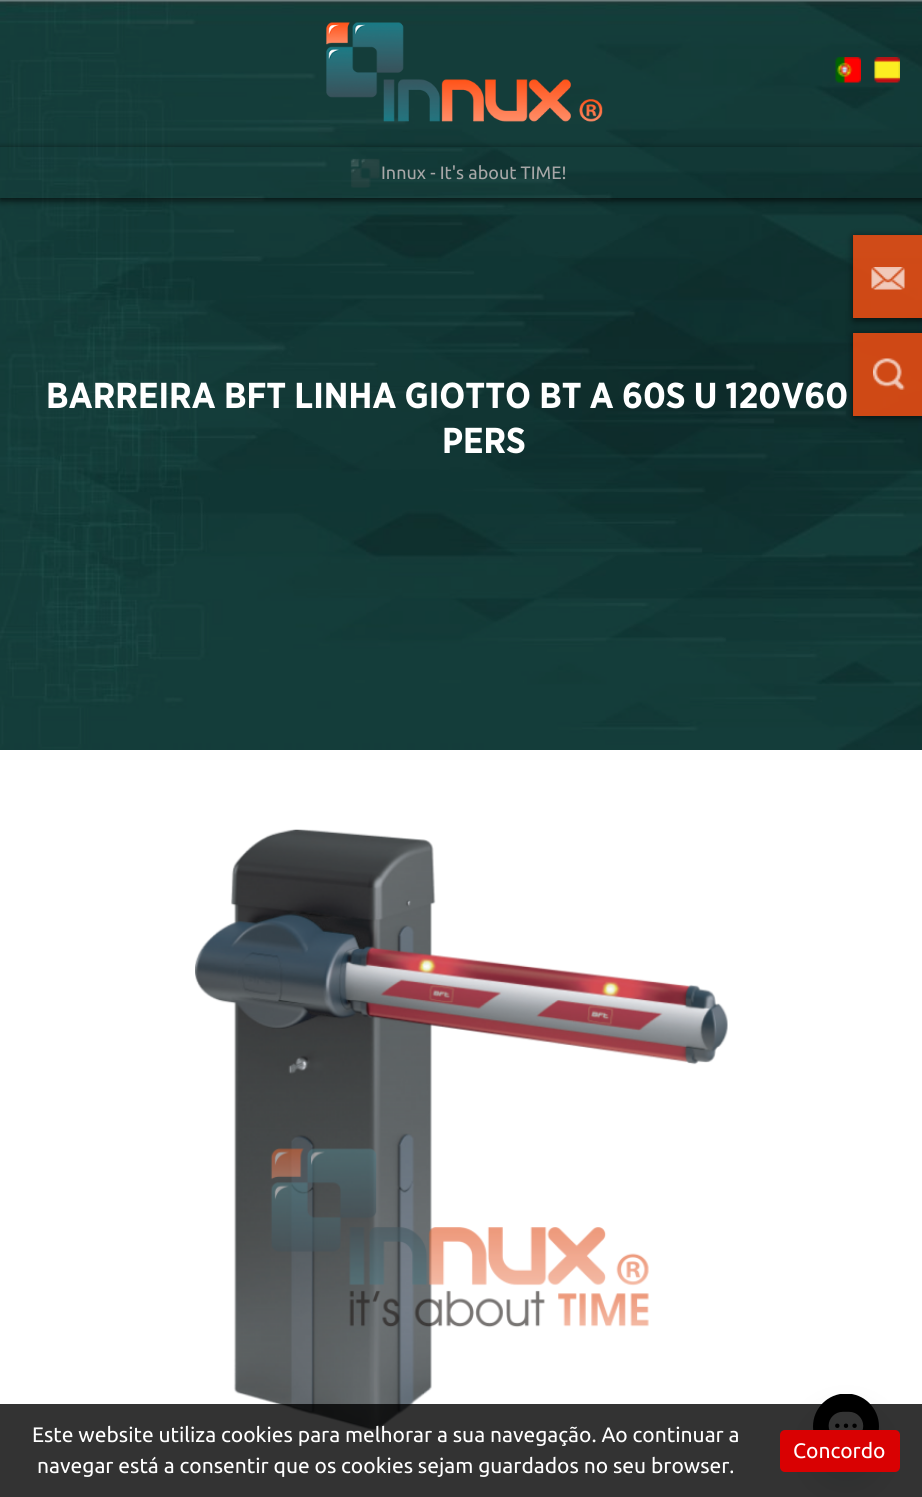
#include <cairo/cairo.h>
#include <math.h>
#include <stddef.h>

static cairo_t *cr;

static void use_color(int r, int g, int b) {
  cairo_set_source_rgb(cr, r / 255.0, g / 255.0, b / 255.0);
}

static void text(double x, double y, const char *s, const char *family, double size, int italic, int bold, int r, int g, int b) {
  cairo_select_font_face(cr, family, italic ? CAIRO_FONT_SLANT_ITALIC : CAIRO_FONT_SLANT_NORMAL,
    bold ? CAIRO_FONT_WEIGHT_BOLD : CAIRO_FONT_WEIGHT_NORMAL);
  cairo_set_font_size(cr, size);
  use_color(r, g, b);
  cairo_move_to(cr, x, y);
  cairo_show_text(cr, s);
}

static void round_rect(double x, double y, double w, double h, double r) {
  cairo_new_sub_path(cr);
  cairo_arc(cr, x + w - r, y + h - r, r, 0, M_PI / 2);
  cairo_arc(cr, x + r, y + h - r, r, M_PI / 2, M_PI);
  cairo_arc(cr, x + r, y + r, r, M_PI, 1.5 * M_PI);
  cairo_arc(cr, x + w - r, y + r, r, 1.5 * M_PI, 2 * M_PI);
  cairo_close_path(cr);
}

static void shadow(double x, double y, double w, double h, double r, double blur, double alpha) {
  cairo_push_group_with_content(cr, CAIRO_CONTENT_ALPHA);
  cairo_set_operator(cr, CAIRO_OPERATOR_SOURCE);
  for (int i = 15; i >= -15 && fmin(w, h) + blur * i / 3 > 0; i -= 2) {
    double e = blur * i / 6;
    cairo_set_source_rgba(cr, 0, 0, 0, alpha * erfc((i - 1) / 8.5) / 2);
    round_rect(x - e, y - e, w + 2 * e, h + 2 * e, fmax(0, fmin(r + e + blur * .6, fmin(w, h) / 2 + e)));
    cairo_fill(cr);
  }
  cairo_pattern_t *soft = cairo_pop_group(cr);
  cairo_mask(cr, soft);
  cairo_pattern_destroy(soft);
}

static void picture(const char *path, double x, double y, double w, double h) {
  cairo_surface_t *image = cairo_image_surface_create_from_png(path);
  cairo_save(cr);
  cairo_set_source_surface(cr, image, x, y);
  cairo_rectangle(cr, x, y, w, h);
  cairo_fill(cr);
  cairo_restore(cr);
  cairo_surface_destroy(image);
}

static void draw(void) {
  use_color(255, 255, 255);
  cairo_paint(cr);
  picture("img_06.png", 0, 0, 922, 750);
  picture("img_01.png", 326, 22, 277, 100);
  cairo_save(cr);
  cairo_set_fill_rule(cr, CAIRO_FILL_RULE_EVEN_ODD);
  cairo_new_path(cr);
  cairo_move_to(cr, 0, 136);
  cairo_line_to(cr, 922, 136);
  cairo_line_to(cr, 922, 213);
  cairo_line_to(cr, 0, 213);
  cairo_close_path(cr);
  cairo_move_to(cr, 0, 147);
  cairo_line_to(cr, 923, 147);
  cairo_line_to(cr, 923, 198);
  cairo_line_to(cr, 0, 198);
  cairo_close_path(cr);
  cairo_clip(cr);
  use_color(0, 0, 0);
  shadow(0, 149, 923, 51, 0, 4, 0.8);
  cairo_restore(cr);
  picture("img_02.png", 835, 57, 26, 26);
  picture("img_03.png", 874, 57, 26, 26);
  picture("img_04.png", 350, 158, 30, 30);
  cairo_save(cr);
  cairo_set_fill_rule(cr, CAIRO_FILL_RULE_EVEN_ODD);
  cairo_new_path(cr);
  cairo_move_to(cr, 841, 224);
  cairo_line_to(cr, 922, 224);
  cairo_line_to(cr, 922, 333);
  cairo_line_to(cr, 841, 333);
  cairo_close_path(cr);
  cairo_move_to(cr, 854, 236);
  cairo_line_to(cr, 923, 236);
  cairo_line_to(cr, 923, 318);
  cairo_line_to(cr, 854, 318);
  cairo_close_path(cr);
  cairo_clip(cr);
  use_color(0, 0, 0);
  shadow(854, 237, 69, 83, 0, 4, 0.7);
  cairo_restore(cr);
  cairo_set_source_rgba(cr, 1, 0.31, 0.063, 0.8);
  cairo_rectangle(cr, 853, 235, 69, 83);
  cairo_fill(cr);
  picture("img_05.png", 871, 267, 34, 23);
  cairo_save(cr);
  cairo_set_fill_rule(cr, CAIRO_FILL_RULE_EVEN_ODD);
  cairo_new_path(cr);
  cairo_move_to(cr, 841, 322);
  cairo_line_to(cr, 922, 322);
  cairo_line_to(cr, 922, 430);
  cairo_line_to(cr, 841, 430);
  cairo_close_path(cr);
  cairo_move_to(cr, 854, 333);
  cairo_line_to(cr, 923, 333);
  cairo_line_to(cr, 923, 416);
  cairo_line_to(cr, 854, 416);
  cairo_close_path(cr);
  cairo_clip(cr);
  use_color(0, 0, 0);
  shadow(854, 335, 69, 82, 0, 4, 0.7);
  cairo_restore(cr);
  cairo_rectangle(cr, 853, 333, 69, 83);
  cairo_fill(cr);
  picture("img_07.png", 873, 358, 32, 32);
  picture("img_08.png", 195, 829, 533, 601);
  use_color(73, 104, 126);
  shadow(813, 1418, 66, 66, 33, 18, 0.16);
  picture("img_09.png", 813, 1394, 66, 36);
  cairo_set_source_rgba(cr, 0, 0, 0, 0.8);
  cairo_rectangle(cr, 0, 1404, 922, 93);
  cairo_fill(cr);
  use_color(217, 1, 2);
  round_rect(780, 1430, 120, 42, 5);
  cairo_fill(cr);
  text(381, 179, "Innux - It's about TIME!", "Ubuntu", 18, 0, 0, 167, 167, 167);
  text(46, 408, "BARREIRA BFT LINHA GIOTTO BT A 60S U 120V60", "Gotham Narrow", 36, 0, 1, 255, 255, 255);
  text(442, 453, "PERS", "Gotham Narrow", 36, 0, 1, 255, 255, 255);
  text(32, 1442, "Este website utiliza cookies para melhorar a sua navegação. Ao continuar a", "Ubuntu", 21, 0, 0, 255, 255, 255);
  text(37, 1473, "navegar está a consentir que os cookies sejam guardados no seu browser.", "Ubuntu", 21, 0, 0, 255, 255, 255);
  text(793, 1458, "Concordo", "Ubuntu", 21, 0, 0, 255, 255, 255);
}

int main(void) {
  cairo_surface_t *surface = cairo_image_surface_create(CAIRO_FORMAT_RGB24, 922, 1497);
  cr = cairo_create(surface);
  cairo_font_options_t *options = cairo_font_options_create();
  cairo_font_options_set_hint_metrics(options, CAIRO_HINT_METRICS_OFF);
  cairo_font_options_set_hint_style(options, CAIRO_HINT_STYLE_NONE);
  cairo_set_font_options(cr, options);
  cairo_set_miter_limit(cr, 4);
  draw();
  cairo_surface_write_to_png(surface, "out.png");
  cairo_font_options_destroy(options);
  cairo_destroy(cr);
  cairo_surface_destroy(surface);
  return 0;
}
